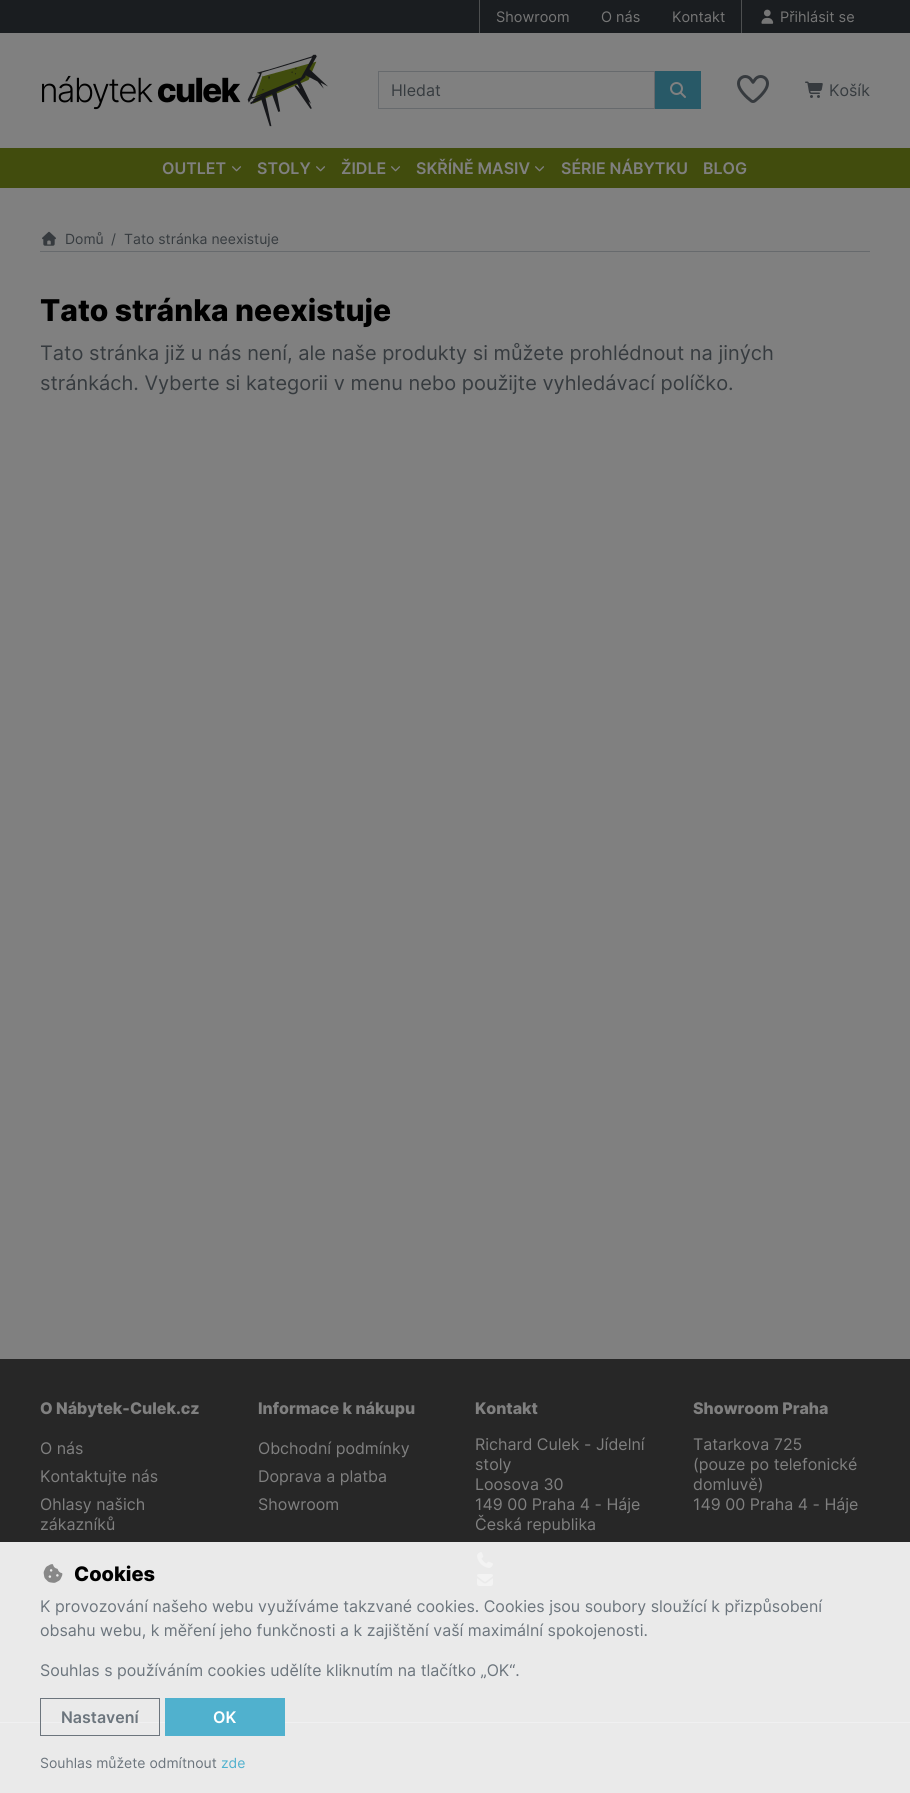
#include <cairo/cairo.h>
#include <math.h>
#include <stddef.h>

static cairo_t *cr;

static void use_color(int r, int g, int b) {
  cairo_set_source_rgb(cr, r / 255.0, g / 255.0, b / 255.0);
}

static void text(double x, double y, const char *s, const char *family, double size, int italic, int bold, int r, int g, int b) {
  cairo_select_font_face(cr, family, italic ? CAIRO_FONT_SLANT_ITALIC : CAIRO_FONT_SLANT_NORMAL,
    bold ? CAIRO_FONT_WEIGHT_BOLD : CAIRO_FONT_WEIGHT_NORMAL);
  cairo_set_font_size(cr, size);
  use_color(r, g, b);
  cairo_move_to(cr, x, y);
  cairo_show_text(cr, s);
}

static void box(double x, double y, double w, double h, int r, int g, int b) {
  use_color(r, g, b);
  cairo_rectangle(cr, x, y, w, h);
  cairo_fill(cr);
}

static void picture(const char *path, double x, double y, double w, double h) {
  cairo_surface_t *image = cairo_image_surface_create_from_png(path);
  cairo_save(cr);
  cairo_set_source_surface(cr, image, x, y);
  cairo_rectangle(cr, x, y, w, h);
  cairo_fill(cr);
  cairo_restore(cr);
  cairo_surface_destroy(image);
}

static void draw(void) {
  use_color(128, 128, 128);
  cairo_paint(cr);
  box(0, 0, 910, 33, 26, 29, 32);
  box(479, 0, 1, 33, 77, 79, 80);
  box(741, 0, 1, 33, 77, 79, 80);
  picture("img_01.png", 761, 9, 13, 15);
  picture("img_02.png", 42, 54, 286, 73);
  cairo_rectangle(cr, 378.5, 71.5, 276, 37);
  use_color(103, 106, 109);
  cairo_set_line_width(cr, 1);
  cairo_stroke(cr);
  box(655, 71, 46, 38, 40, 89, 103);
  picture("img_03.png", 670, 82, 16, 16);
  picture("img_04.png", 737, 75, 32, 28);
  picture("img_05.png", 805, 81, 18, 17);
  box(0, 148, 910, 40, 65, 76, 13);
  picture("img_06.png", 232, 166, 10, 6);
  picture("img_06.png", 316, 166, 10, 6);
  picture("img_06.png", 391, 166, 10, 6);
  picture("img_06.png", 535, 166, 10, 6);
  box(40, 251, 830, 1, 103, 106, 109);
  picture("img_07.png", 42, 231, 14, 15);
  box(0, 1359, 910, 434, 39, 39, 39);
  picture("img_08.png", 477, 1552, 16, 16);
  picture("img_09.png", 477, 1574, 16, 12);
  box(0, 1722, 910, 1, 103, 106, 109);
  cairo_set_source_rgba(cr, 1, 1, 1, 0.9);
  cairo_rectangle(cr, 0, 1542, 910, 251);
  cairo_fill(cr);
  picture("img_10.png", 43, 1564, 20, 19);
  cairo_rectangle(cr, 40.5, 1698.5, 119, 37);
  use_color(108, 117, 125);
  cairo_stroke(cr);
  box(165, 1698, 120, 38, 80, 177, 206);
  text(496, 22, "Showroom", "Inter", 14.5, 0, 0, 118, 118, 118);
  text(601, 22, "O nás", "Inter", 14.5, 0, 0, 118, 118, 118);
  text(672, 22, "Kontakt", "Inter", 14.5, 0, 0, 118, 118, 118);
  text(780, 22, "Přihlásit se", "Inter", 14.5, 0, 0, 118, 118, 118);
  text(391, 96, "Hledat", "Inter", 16, 0, 0, 54, 59, 63);
  text(829, 96, "Košík", "Inter", 16, 0, 0, 54, 59, 63);
  text(162, 174, "OUTLET", "Inter SemiBold", 16, 0, 0, 128, 128, 128);
  text(257, 174, "STOLY", "Inter SemiBold", 16, 0, 0, 128, 128, 128);
  text(341, 174, "ŽIDLE", "Inter SemiBold", 16, 0, 0, 128, 128, 128);
  text(416, 174, "SKŘÍNĚ MASIV", "Inter SemiBold", 16, 0, 0, 128, 128, 128);
  text(561, 174, "SÉRIE NÁBYTKU", "Inter SemiBold", 16, 0, 0, 128, 128, 128);
  text(703, 174, "BLOG", "Inter SemiBold", 16, 0, 0, 128, 128, 128);
  text(65, 244, "Domů", "Inter", 14, 0, 0, 54, 59, 63);
  text(111, 244, "/", "Inter", 14, 0, 0, 54, 59, 63);
  text(124, 244, "Tato stránka neexistuje", "Inter", 14, 0, 0, 54, 59, 63);
  text(40, 321, "Tato stránka neexistuje", "Inter ExtraBold", 30, 0, 0, 0, 0, 0);
  text(40, 360, "Tato stránka již u nás není, ale naše produkty si můžete prohlédnout na jiných", "Inter", 20, 0, 0, 54, 59, 63);
  text(40, 390, "stránkách. Vyberte si kategorii v menu nebo použijte vyhledávací políčko.", "Inter", 20, 0, 0, 54, 59, 63);
  text(40, 1414, "O Nábytek-Culek.cz", "Inter ExtraBold", 16, 0, 0, 128, 128, 128);
  text(40, 1454, "O nás", "Inter", 16, 0, 0, 128, 128, 128);
  text(40, 1482, "Kontaktujte nás", "Inter", 16, 0, 0, 128, 128, 128);
  text(40, 1510, "Ohlasy našich", "Inter", 16, 0, 0, 128, 128, 128);
  text(40, 1530, "zákazníků", "Inter", 16, 0, 0, 128, 128, 128);
  text(258, 1414, "Informace k nákupu", "Inter ExtraBold", 16, 0, 0, 128, 128, 128);
  text(258, 1454, "Obchodní podmínky", "Inter", 16, 0, 0, 128, 128, 128);
  text(258, 1482, "Doprava a platba", "Inter", 16, 0, 0, 128, 128, 128);
  text(258, 1510, "Showroom", "Inter", 16, 0, 0, 128, 128, 128);
  text(475, 1414, "Kontakt", "Inter ExtraBold", 16, 0, 0, 128, 128, 128);
  text(475, 1450, "Richard Culek - Jídelní", "Inter", 16, 0, 0, 128, 128, 128);
  text(475, 1470, "stoly", "Inter", 16, 0, 0, 128, 128, 128);
  text(475, 1490, "Loosova 30", "Inter", 16, 0, 0, 128, 128, 128);
  text(475, 1510, "149 00 Praha 4 - Háje", "Inter", 16, 0, 0, 128, 128, 128);
  text(475, 1530, "Česká republika", "Inter", 16, 0, 0, 128, 128, 128);
  text(693, 1414, "Showroom Praha", "Inter ExtraBold", 16, 0, 0, 128, 128, 128);
  text(693, 1450, "Tatarkova 725", "Inter", 16, 0, 0, 128, 128, 128);
  text(693, 1470, "(pouze po telefonické", "Inter", 16, 0, 0, 128, 128, 128);
  text(693, 1490, "domluvě)", "Inter", 16, 0, 0, 128, 128, 128);
  text(693, 1510, "149 00 Praha 4 - Háje", "Inter", 16, 0, 0, 128, 128, 128);
  text(74, 1581, "Cookies", "Inter ExtraBold", 20, 0, 0, 0, 0, 0);
  text(40, 1612, "K provozování našeho webu využíváme takzvané cookies. Cookies jsou soubory sloužící k přizpůsobení", "Inter", 16, 0, 0, 108, 117, 125);
  text(40, 1636, "obsahu webu, k měření jeho funkčnosti a k zajištění vaší maximální spokojenosti.", "Inter", 16, 0, 0, 108, 117, 125);
  text(40, 1676, "Souhlas s používáním cookies udělíte kliknutím na tlačítko „OK“.", "Inter", 16, 0, 0, 108, 117, 125);
  text(61, 1723, "Nastavení", "Inter SemiBold", 16, 0, 0, 108, 117, 125);
  text(213, 1723, "OK", "Inter SemiBold", 16, 0, 0, 255, 255, 255);
  text(40, 1768, "Souhlas můžete odmítnout", "Inter", 14, 0, 0, 108, 117, 125);
  text(221, 1768, "zde", "Inter", 14, 0, 0, 80, 177, 206);
}

int main(void) {
  cairo_surface_t *surface = cairo_image_surface_create(CAIRO_FORMAT_RGB24, 910, 1793);
  cr = cairo_create(surface);
  cairo_font_options_t *options = cairo_font_options_create();
  cairo_font_options_set_hint_metrics(options, CAIRO_HINT_METRICS_OFF);
  cairo_font_options_set_hint_style(options, CAIRO_HINT_STYLE_NONE);
  cairo_set_font_options(cr, options);
  cairo_set_miter_limit(cr, 4);
  draw();
  cairo_surface_write_to_png(surface, "out.png");
  cairo_font_options_destroy(options);
  cairo_destroy(cr);
  cairo_surface_destroy(surface);
  return 0;
}
